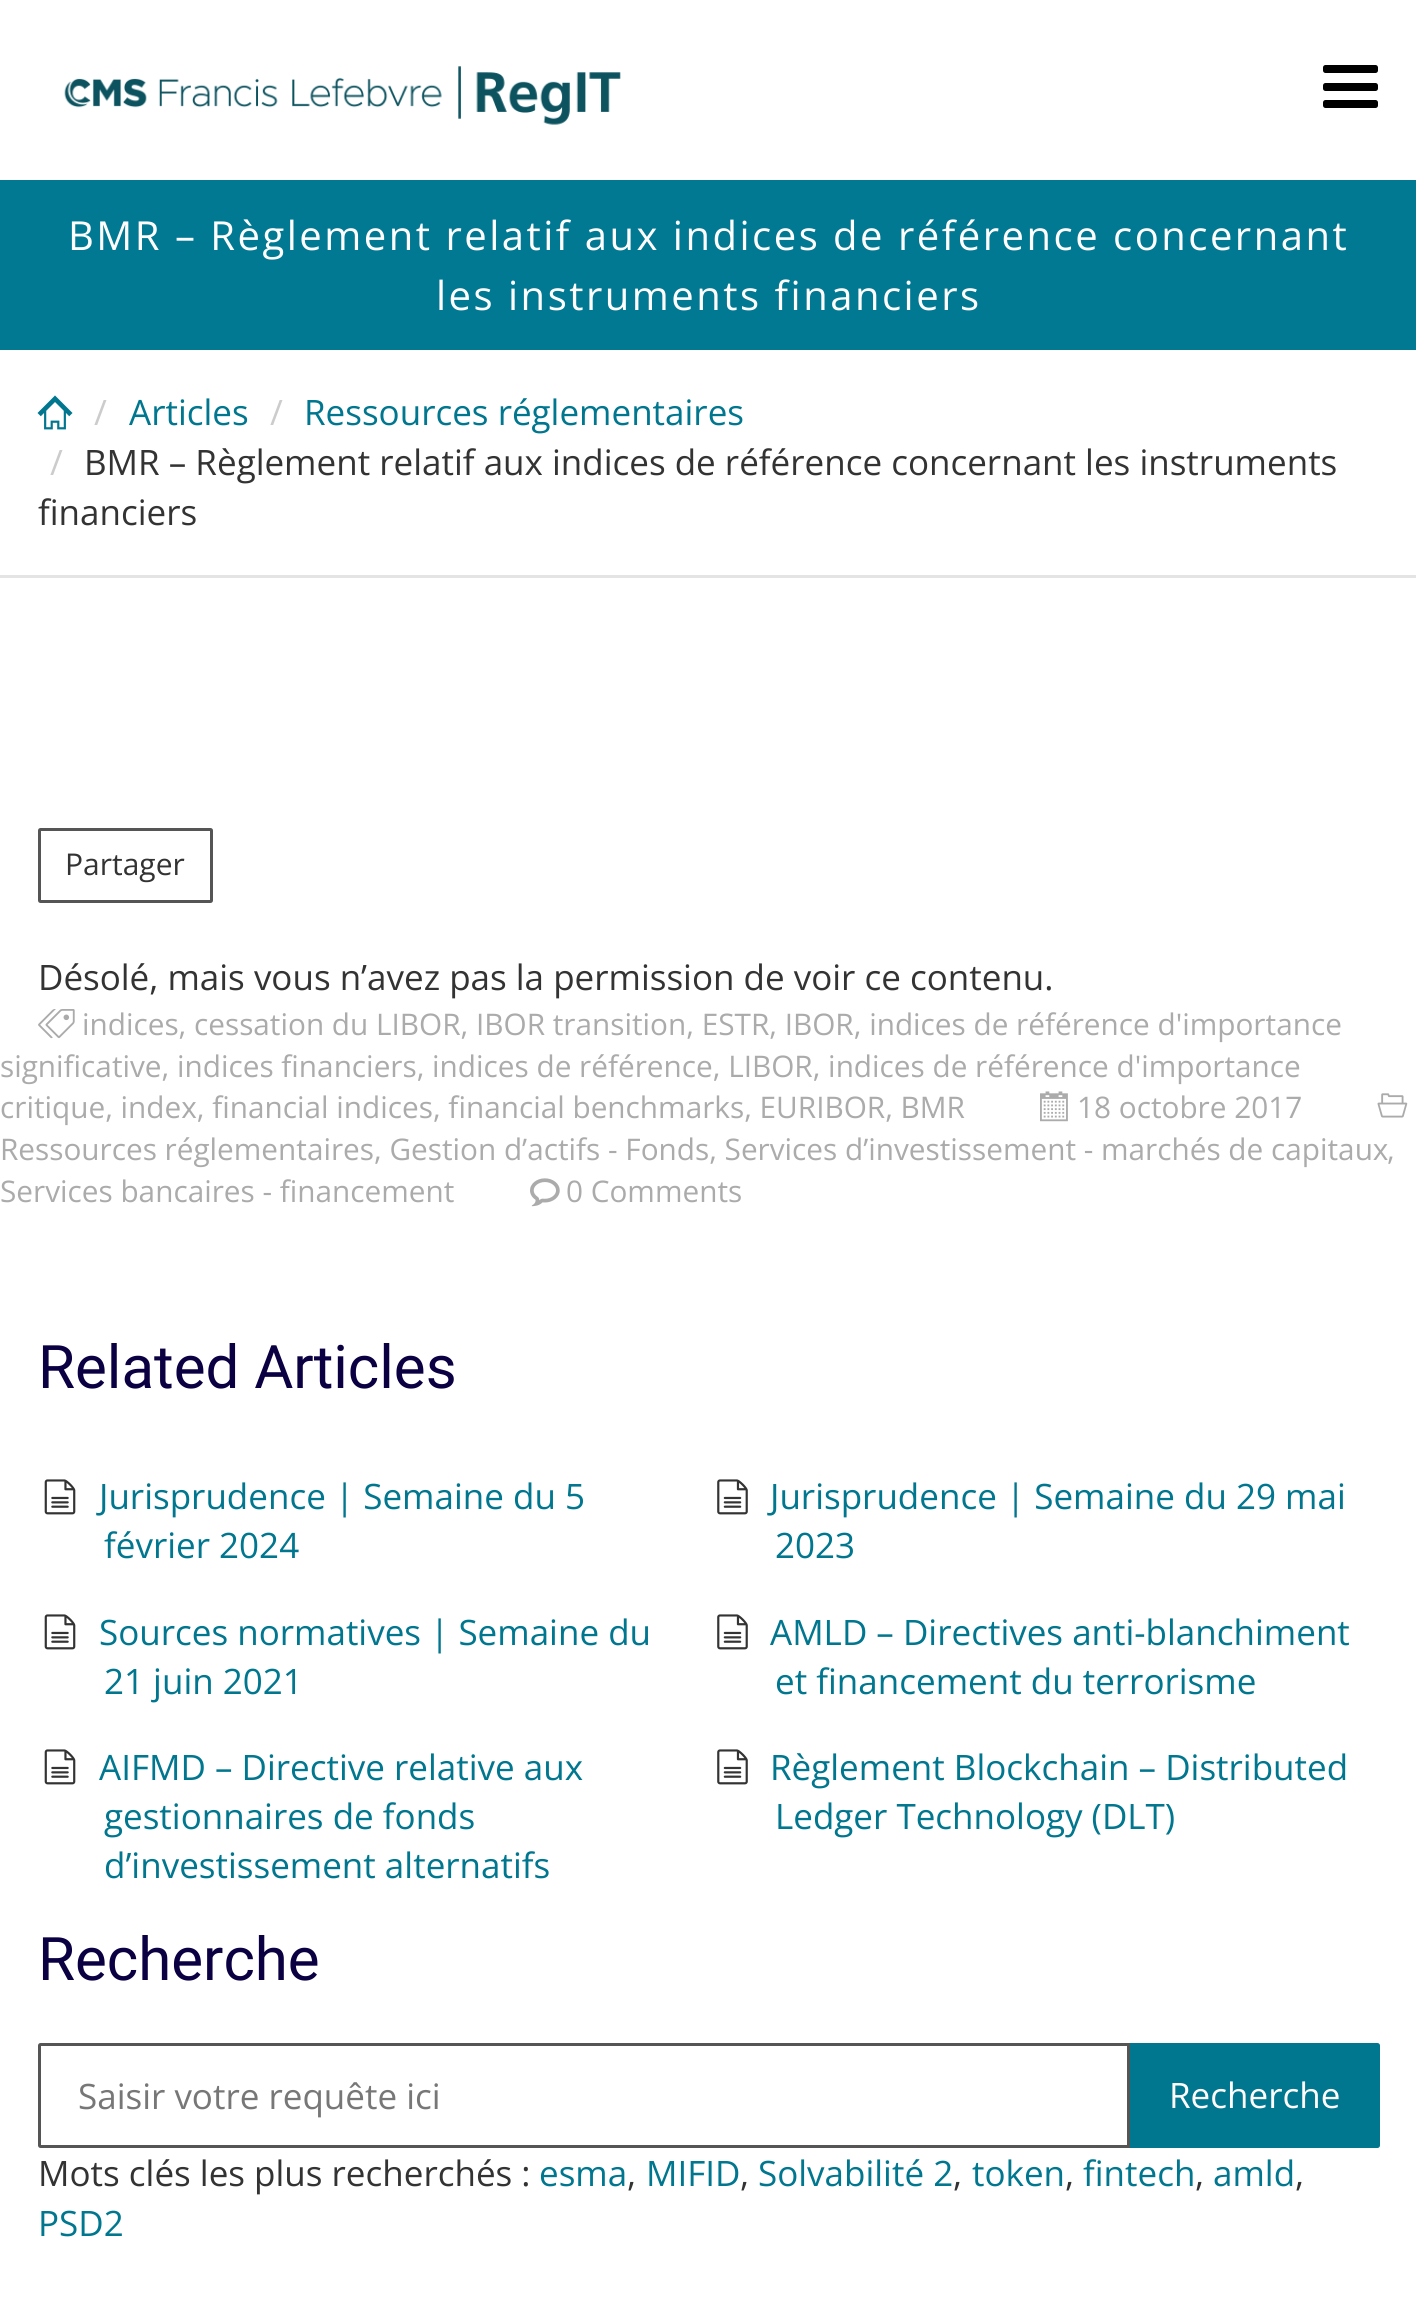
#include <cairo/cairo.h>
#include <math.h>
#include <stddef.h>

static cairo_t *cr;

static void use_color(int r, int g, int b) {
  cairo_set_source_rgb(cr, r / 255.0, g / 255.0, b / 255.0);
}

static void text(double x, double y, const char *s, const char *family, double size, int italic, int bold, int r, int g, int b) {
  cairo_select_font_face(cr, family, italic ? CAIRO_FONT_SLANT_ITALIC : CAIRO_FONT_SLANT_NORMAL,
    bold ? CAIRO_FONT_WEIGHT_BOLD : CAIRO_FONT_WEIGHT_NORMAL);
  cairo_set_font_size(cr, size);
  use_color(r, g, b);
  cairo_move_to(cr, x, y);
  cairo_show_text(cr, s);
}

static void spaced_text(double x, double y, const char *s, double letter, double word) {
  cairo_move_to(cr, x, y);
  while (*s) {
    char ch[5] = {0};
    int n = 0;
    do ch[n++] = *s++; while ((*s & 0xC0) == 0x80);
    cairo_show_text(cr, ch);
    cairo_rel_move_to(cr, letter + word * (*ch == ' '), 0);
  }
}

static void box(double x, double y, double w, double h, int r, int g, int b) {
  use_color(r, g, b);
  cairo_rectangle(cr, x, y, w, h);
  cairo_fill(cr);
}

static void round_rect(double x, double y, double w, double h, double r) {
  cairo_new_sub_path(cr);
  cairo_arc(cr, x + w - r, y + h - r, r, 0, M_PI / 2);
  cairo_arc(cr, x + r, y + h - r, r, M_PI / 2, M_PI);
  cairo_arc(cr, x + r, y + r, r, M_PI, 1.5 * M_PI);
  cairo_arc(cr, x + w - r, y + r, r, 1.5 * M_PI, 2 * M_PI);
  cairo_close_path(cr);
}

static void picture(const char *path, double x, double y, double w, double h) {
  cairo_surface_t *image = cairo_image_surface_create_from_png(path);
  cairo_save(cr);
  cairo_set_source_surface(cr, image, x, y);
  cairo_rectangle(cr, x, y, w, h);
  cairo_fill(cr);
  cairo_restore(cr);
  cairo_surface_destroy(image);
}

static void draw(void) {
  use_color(255, 255, 255);
  cairo_paint(cr);
  picture("img_01.png", 64, 66, 557, 59);
  use_color(0, 0, 0);
  round_rect(1323, 65, 55, 8, 2.5);
  cairo_fill(cr);
  round_rect(1323, 83, 55, 8, 2.5);
  cairo_fill(cr);
  round_rect(1323, 100, 55, 8, 2.5);
  cairo_fill(cr);
  box(0, 180, 1416, 170, 1, 121, 147);
  box(0, 575, 1416, 3, 228, 228, 228);
  picture("img_02.png", 37, 395, 36, 35);
  round_rect(39.5, 829.5, 172, 72, 1);
  use_color(85, 85, 85);
  cairo_set_line_width(cr, 3);
  cairo_stroke(cr);
  picture("img_03.png", 38, 1009, 37, 30);
  picture("img_04.png", 1040, 1091, 28, 31);
  picture("img_05.png", 1377, 1093, 31, 25);
  picture("img_06.png", 530, 1178, 30, 29);
  picture("img_07.png", 44, 1479, 32, 36);
  picture("img_08.png", 717, 1479, 31, 36);
  picture("img_07.png", 44, 1614, 32, 36);
  picture("img_08.png", 717, 1614, 31, 36);
  picture("img_07.png", 44, 1749, 32, 36);
  picture("img_08.png", 717, 1749, 31, 36);
  use_color(0, 118, 143);
  cairo_new_path(cr);
  cairo_move_to(cr, 1129.5, 2044.5);
  cairo_line_to(cr, 1377.5, 2044.5);
  cairo_curve_to(cr, 1378, 2044.5, 1378.5, 2045, 1378.5, 2045.5);
  cairo_line_to(cr, 1378.5, 2145.5);
  cairo_curve_to(cr, 1378.5, 2146, 1378, 2146.5, 1377.5, 2146.5);
  cairo_line_to(cr, 1129.5, 2146.5);
  cairo_close_path(cr);
  cairo_fill_preserve(cr);
  cairo_stroke(cr);
  use_color(255, 255, 255);
  cairo_new_path(cr);
  cairo_move_to(cr, 40.5, 2044.5);
  cairo_line_to(cr, 1128.5, 2044.5);
  cairo_line_to(cr, 1128.5, 2146.5);
  cairo_line_to(cr, 40.5, 2146.5);
  cairo_curve_to(cr, 40, 2146.5, 39.5, 2146, 39.5, 2145.5);
  cairo_line_to(cr, 39.5, 2045.5);
  cairo_curve_to(cr, 39.5, 2045, 40, 2044.5, 40.5, 2044.5);
  cairo_close_path(cr);
  cairo_fill_preserve(cr);
  use_color(85, 85, 85);
  cairo_stroke(cr);
  cairo_select_font_face(cr, "Open Sans", CAIRO_FONT_SLANT_NORMAL, CAIRO_FONT_WEIGHT_NORMAL);
  cairo_set_font_size(cr, 40);
  use_color(255, 255, 255);
  spaced_text(68, 250, "BMR – Règlement relatif aux indices de référence concernant", 2.5, 0);
  spaced_text(436, 310, "les instruments financiers", 2.5, 0);
  text(94, 425, "/", "Open Sans", 35, 0, 0, 204, 204, 204);
  text(129, 425, "Articles", "Open Sans", 35, 0, 0, 0, 118, 143);
  text(270, 425, "/", "Open Sans", 35, 0, 0, 204, 204, 204);
  text(304, 425, "Ressources réglementaires", "Open Sans", 35, 0, 0, 0, 118, 143);
  text(50, 475, "/", "Open Sans", 35, 0, 0, 204, 204, 204);
  text(84, 475, "BMR – Règlement relatif aux indices de référence concernant les instruments", "Open Sans", 35, 0, 0, 51, 51, 51);
  text(38, 525, "financiers", "Open Sans", 35, 0, 0, 51, 51, 51);
  text(65, 875, "Partager", "Open Sans", 30, 0, 0, 51, 51, 51);
  text(38, 990, "Désolé, mais vous n’avez pas la permission de voir ce contenu.", "Open Sans", 35, 0, 0, 51, 51, 51);
  text(82, 1035, "indices, cessation du LIBOR, IBOR transition, ESTR, IBOR, indices de référence d'importance", "Open Sans", 29.75, 0, 0, 171, 171, 171);
  text(0, 1077, "significative, indices financiers, indices de référence, LIBOR, indices de référence d'importance", "Open Sans", 29.75, 0, 0, 171, 171, 171);
  text(0, 1118, "critique, index, financial indices, financial benchmarks, EURIBOR, BMR", "Open Sans", 29.75, 0, 0, 171, 171, 171);
  text(1077, 1118, "18 octobre 2017", "Open Sans", 29.75, 0, 0, 171, 171, 171);
  text(0, 1160, "Ressources réglementaires, Gestion d’actifs - Fonds, Services d’investissement - marchés de capitaux", "Open Sans", 29.75, 0, 0, 171, 171, 171);
  text(1387, 1160, ",", "Open Sans", 29.75, 0, 0, 171, 171, 171);
  text(0, 1202, "Services bancaires - financement", "Open Sans", 29.75, 0, 0, 171, 171, 171);
  text(566, 1202, "0 Comments", "Open Sans", 29.75, 0, 0, 171, 171, 171);
  text(38, 1388, "Related Articles", "Roboto", 60, 0, 0, 11, 0, 66);
  text(99, 1509, "Jurisprudence | Semaine du 5", "Open Sans", 35, 0, 0, 0, 118, 143);
  text(104, 1558, "février 2024", "Open Sans", 35, 0, 0, 0, 118, 143);
  text(770, 1509, "Jurisprudence | Semaine du 29 mai", "Open Sans", 35, 0, 0, 0, 118, 143);
  text(775, 1558, "2023", "Open Sans", 35, 0, 0, 0, 118, 143);
  text(99, 1645, "Sources normatives | Semaine du", "Open Sans", 35, 0, 0, 0, 118, 143);
  text(104, 1694, "21 juin 2021", "Open Sans", 35, 0, 0, 0, 118, 143);
  text(770, 1645, "AMLD – Directives anti-blanchiment", "Open Sans", 35, 0, 0, 0, 118, 143);
  text(775, 1694, "et financement du terrorisme", "Open Sans", 35, 0, 0, 0, 118, 143);
  text(99, 1780, "AIFMD – Directive relative aux", "Open Sans", 35, 0, 0, 0, 118, 143);
  text(104, 1829, "gestionnaires de fonds", "Open Sans", 35, 0, 0, 0, 118, 143);
  text(104, 1878, "d’investissement alternatifs", "Open Sans", 35, 0, 0, 0, 118, 143);
  text(770, 1780, "Règlement Blockchain – Distributed", "Open Sans", 35, 0, 0, 0, 118, 143);
  text(775, 1829, "Ledger Technology (DLT)", "Open Sans", 35, 0, 0, 0, 118, 143);
  text(38, 1980, "Recherche", "Roboto", 60, 0, 0, 11, 0, 66);
  text(78, 2109, "Saisir votre requête ici", "Open Sans", 35, 0, 0, 119, 119, 119);
  text(1169, 2108, "Recherche", "Open Sans", 35, 0, 0, 255, 255, 255);
  text(38, 2186, "Mots clés les plus recherchés :", "Open Sans", 35, 0, 0, 51, 51, 51);
  text(539, 2186, "esma", "Open Sans", 35, 0, 0, 0, 118, 143);
  text(627, 2186, ",", "Open Sans", 35, 0, 0, 51, 51, 51);
  text(646, 2186, "MIFID", "Open Sans", 35, 0, 0, 0, 118, 143);
  text(740, 2186, ",", "Open Sans", 35, 0, 0, 51, 51, 51);
  text(758, 2186, "Solvabilité 2", "Open Sans", 35, 0, 0, 0, 118, 143);
  text(953, 2186, ",", "Open Sans", 35, 0, 0, 51, 51, 51);
  text(972, 2186, "token", "Open Sans", 35, 0, 0, 0, 118, 143);
  text(1065, 2186, ",", "Open Sans", 35, 0, 0, 51, 51, 51);
  text(1083, 2186, "fintech", "Open Sans", 35, 0, 0, 0, 118, 143);
  text(1195, 2186, ",", "Open Sans", 35, 0, 0, 51, 51, 51);
  text(1213, 2186, "amld", "Open Sans", 35, 0, 0, 0, 118, 143);
  text(1295, 2186, ",", "Open Sans", 35, 0, 0, 51, 51, 51);
  text(38, 2236, "PSD2", "Open Sans", 35, 0, 0, 0, 118, 143);
}

int main(void) {
  cairo_surface_t *surface = cairo_image_surface_create(CAIRO_FORMAT_RGB24, 1416, 2318);
  cr = cairo_create(surface);
  cairo_font_options_t *options = cairo_font_options_create();
  cairo_font_options_set_hint_metrics(options, CAIRO_HINT_METRICS_OFF);
  cairo_font_options_set_hint_style(options, CAIRO_HINT_STYLE_NONE);
  cairo_set_font_options(cr, options);
  cairo_set_miter_limit(cr, 4);
  draw();
  cairo_surface_write_to_png(surface, "out.png");
  cairo_font_options_destroy(options);
  cairo_destroy(cr);
  cairo_surface_destroy(surface);
  return 0;
}
